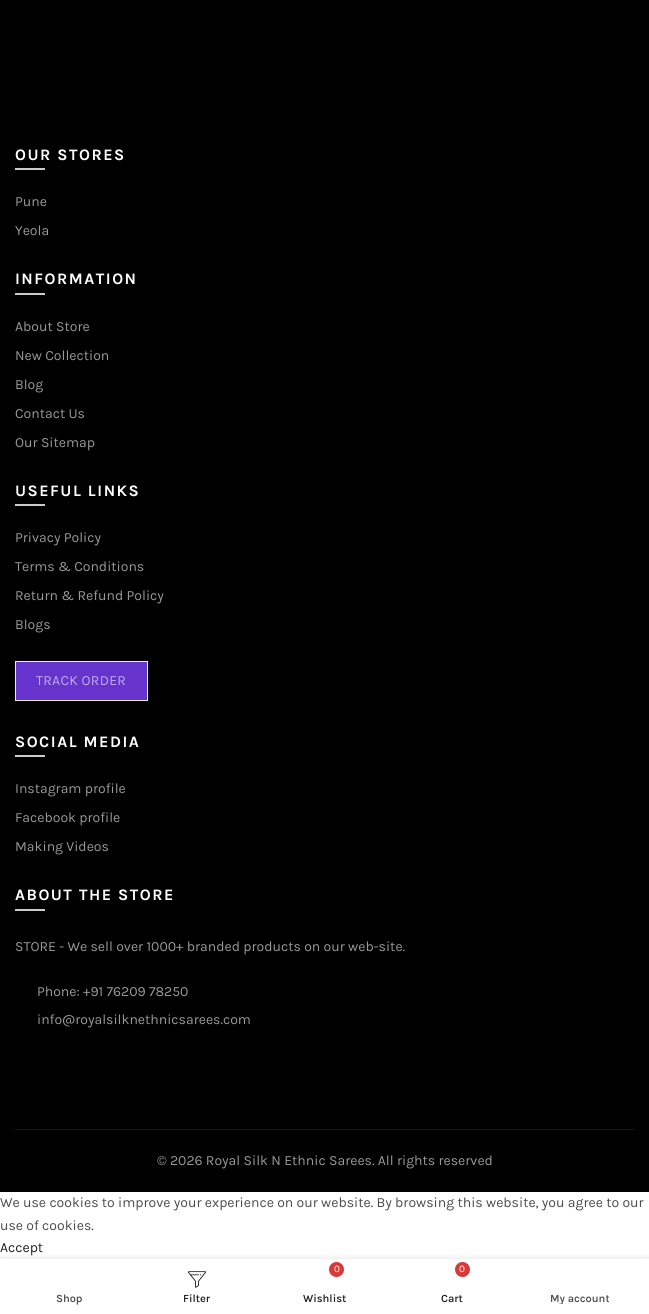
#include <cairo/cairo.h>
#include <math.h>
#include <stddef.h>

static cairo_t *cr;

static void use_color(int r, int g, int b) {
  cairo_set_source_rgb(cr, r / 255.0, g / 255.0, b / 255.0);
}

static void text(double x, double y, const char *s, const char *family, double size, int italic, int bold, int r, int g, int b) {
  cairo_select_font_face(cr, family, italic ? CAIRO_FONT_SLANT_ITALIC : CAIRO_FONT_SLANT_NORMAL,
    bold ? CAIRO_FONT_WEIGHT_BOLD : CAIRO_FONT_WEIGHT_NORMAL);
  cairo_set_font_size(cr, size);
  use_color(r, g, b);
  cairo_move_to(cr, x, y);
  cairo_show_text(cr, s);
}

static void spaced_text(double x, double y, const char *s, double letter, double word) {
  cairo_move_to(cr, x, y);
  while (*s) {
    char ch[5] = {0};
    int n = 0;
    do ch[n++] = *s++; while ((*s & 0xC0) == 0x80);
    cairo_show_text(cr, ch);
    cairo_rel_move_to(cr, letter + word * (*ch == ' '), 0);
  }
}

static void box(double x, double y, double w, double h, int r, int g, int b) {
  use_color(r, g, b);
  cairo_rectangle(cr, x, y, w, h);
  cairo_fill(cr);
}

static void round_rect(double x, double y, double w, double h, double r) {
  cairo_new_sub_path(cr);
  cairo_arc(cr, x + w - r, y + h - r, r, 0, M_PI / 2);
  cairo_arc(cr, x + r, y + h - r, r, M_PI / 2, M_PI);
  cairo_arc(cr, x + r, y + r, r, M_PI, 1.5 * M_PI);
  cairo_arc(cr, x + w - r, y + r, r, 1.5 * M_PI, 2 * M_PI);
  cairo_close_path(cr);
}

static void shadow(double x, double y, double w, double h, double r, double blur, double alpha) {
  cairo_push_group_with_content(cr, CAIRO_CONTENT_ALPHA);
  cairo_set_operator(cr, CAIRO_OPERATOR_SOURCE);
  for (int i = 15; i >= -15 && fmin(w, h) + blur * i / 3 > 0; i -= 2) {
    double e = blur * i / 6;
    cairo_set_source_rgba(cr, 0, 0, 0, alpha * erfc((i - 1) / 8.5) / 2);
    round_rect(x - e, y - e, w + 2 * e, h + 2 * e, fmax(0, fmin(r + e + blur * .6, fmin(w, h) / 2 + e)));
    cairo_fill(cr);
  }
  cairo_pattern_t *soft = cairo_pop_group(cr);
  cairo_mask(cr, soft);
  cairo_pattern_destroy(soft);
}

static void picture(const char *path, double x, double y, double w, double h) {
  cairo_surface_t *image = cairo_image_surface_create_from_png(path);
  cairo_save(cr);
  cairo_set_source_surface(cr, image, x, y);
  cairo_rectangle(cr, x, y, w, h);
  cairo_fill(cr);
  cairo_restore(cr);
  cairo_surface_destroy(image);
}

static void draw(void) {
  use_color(255, 255, 255);
  cairo_paint(cr);
  box(0, 0, 649, 1192, 0, 0, 0);
  box(15, 168, 30, 2, 204, 204, 204);
  box(15, 293, 30, 2, 204, 204, 204);
  box(15, 504, 30, 2, 204, 204, 204);
  use_color(102, 51, 204);
  cairo_rectangle(cr, 15.5, 661.5, 132, 39);
  cairo_fill_preserve(cr);
  use_color(236, 236, 236);
  cairo_set_line_width(cr, 1);
  cairo_stroke(cr);
  box(15, 755, 30, 2, 204, 204, 204);
  box(15, 909, 30, 2, 204, 204, 204);
  box(15, 1129, 619, 1, 26, 26, 26);
  cairo_save(cr);
  cairo_rectangle(cr, 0, 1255, 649, 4);
  cairo_clip(cr);
  use_color(0, 0, 0);
  shadow(0, 1259, 649, 55, 0, 4.5, 0.12);
  cairo_restore(cr);
  picture("img_01.png", 188, 1271, 18, 17);
  use_color(217, 57, 57);
  cairo_arc(cr, 336.5, 1269.5, 7.5, 0, 2 * M_PI);
  cairo_fill(cr);
  cairo_arc(cr, 462.5, 1269.5, 7.5, 0, 2 * M_PI);
  cairo_fill(cr);
  cairo_select_font_face(cr, "Karla", CAIRO_FONT_SLANT_NORMAL, CAIRO_FONT_WEIGHT_BOLD);
  cairo_set_font_size(cr, 16);
  use_color(255, 255, 255);
  spaced_text(15, 160, "OUR STORES", 1.5, 0);
  text(15, 206, "Pune", "Karla", 14, 0, 0, 153, 153, 153);
  text(15, 235, "Yeola", "Karla", 14, 0, 0, 153, 153, 153);
  cairo_select_font_face(cr, "Karla", CAIRO_FONT_SLANT_NORMAL, CAIRO_FONT_WEIGHT_BOLD);
  cairo_set_font_size(cr, 16);
  use_color(255, 255, 255);
  spaced_text(15, 284, "INFORMATION", 1.5, 0);
  text(15, 331, "About Store", "Karla", 14, 0, 0, 153, 153, 153);
  text(15, 360, "New Collection", "Karla", 14, 0, 0, 153, 153, 153);
  text(15, 389, "Blog", "Karla", 14, 0, 0, 153, 153, 153);
  text(15, 418, "Contact Us", "Karla", 14, 0, 0, 153, 153, 153);
  text(15, 447, "Our Sitemap", "Karla", 14, 0, 0, 153, 153, 153);
  cairo_select_font_face(cr, "Karla", CAIRO_FONT_SLANT_NORMAL, CAIRO_FONT_WEIGHT_BOLD);
  cairo_set_font_size(cr, 16);
  use_color(255, 255, 255);
  spaced_text(15, 496, "USEFUL LINKS", 1.5, 0);
  text(15, 542, "Privacy Policy", "Karla", 14, 0, 0, 153, 153, 153);
  text(15, 571, "Terms & Conditions", "Karla", 14, 0, 0, 153, 153, 153);
  text(15, 600, "Return & Refund Policy", "Karla", 14, 0, 0, 153, 153, 153);
  text(15, 629, "Blogs", "Karla", 14, 0, 0, 153, 153, 153);
  use_color(194, 173, 235);
  spaced_text(36, 685, "TRACK ORDER", 0.25, 0);
  cairo_select_font_face(cr, "Karla", CAIRO_FONT_SLANT_NORMAL, CAIRO_FONT_WEIGHT_BOLD);
  cairo_set_font_size(cr, 16);
  use_color(255, 255, 255);
  spaced_text(15, 747, "SOCIAL MEDIA", 1.5, 0);
  text(15, 793, "Instagram profile", "Karla", 14, 0, 0, 153, 153, 153);
  text(15, 822, "Facebook profile", "Karla", 14, 0, 0, 153, 153, 153);
  text(15, 851, "Making Videos", "Karla", 14, 0, 0, 153, 153, 153);
  cairo_select_font_face(cr, "Karla", CAIRO_FONT_SLANT_NORMAL, CAIRO_FONT_WEIGHT_BOLD);
  cairo_set_font_size(cr, 16);
  use_color(255, 255, 255);
  spaced_text(15, 900, "ABOUT THE STORE", 1.5, 0);
  text(15, 951, "STORE - We sell over 1000+ branded products on our web-site.", "Karla", 14, 0, 0, 153, 153, 153);
  text(37, 996, "Phone: +91 76209 78250", "Karla", 14, 0, 0, 153, 153, 153);
  text(37, 1024, "info@royalsilknethnicsarees.com", "Karla", 14, 0, 0, 153, 153, 153);
  text(157, 1165, "© 2026 Royal Silk N Ethnic Sarees. All rights reserved", "Karla", 14, 0, 0, 153, 153, 153);
  text(0, 1207, "We use cookies to improve your experience on our website. By browsing this website, you agree to our", "Karla", 14, 0, 0, 76, 76, 76);
  text(0, 1230, "use of cookies.", "Karla", 14, 0, 0, 76, 76, 76);
  text(0, 1252, "Accept", "Karla", 14, 0, 0, 32, 32, 32);
  text(56, 1302, "Shop", "Karla SemiBold", 11, 0, 0, 76, 76, 76);
  text(183, 1302, "Filter", "Karla SemiBold", 11, 0, 0, 32, 32, 32);
  text(334, 1272, "0", "Karla", 10, 0, 0, 255, 255, 255);
  text(303, 1302, "Wishlist", "Karla SemiBold", 11, 0, 0, 32, 32, 32);
  text(459, 1272, "0", "Karla", 10, 0, 0, 255, 255, 255);
  text(441, 1302, "Cart", "Karla SemiBold", 11, 0, 0, 32, 32, 32);
  cairo_save(cr);
  cairo_rectangle(cr, 526, 1293, 108, 11);
  cairo_clip(cr);
  text(550, 1302, "My account", "Karla SemiBold", 11, 0, 0, 76, 76, 76);
  cairo_restore(cr);
}

int main(void) {
  cairo_surface_t *surface = cairo_image_surface_create(CAIRO_FORMAT_RGB24, 649, 1314);
  cr = cairo_create(surface);
  cairo_font_options_t *options = cairo_font_options_create();
  cairo_font_options_set_hint_metrics(options, CAIRO_HINT_METRICS_OFF);
  cairo_font_options_set_hint_style(options, CAIRO_HINT_STYLE_NONE);
  cairo_set_font_options(cr, options);
  cairo_set_miter_limit(cr, 4);
  draw();
  cairo_surface_write_to_png(surface, "out.png");
  cairo_font_options_destroy(options);
  cairo_destroy(cr);
  cairo_surface_destroy(surface);
  return 0;
}
